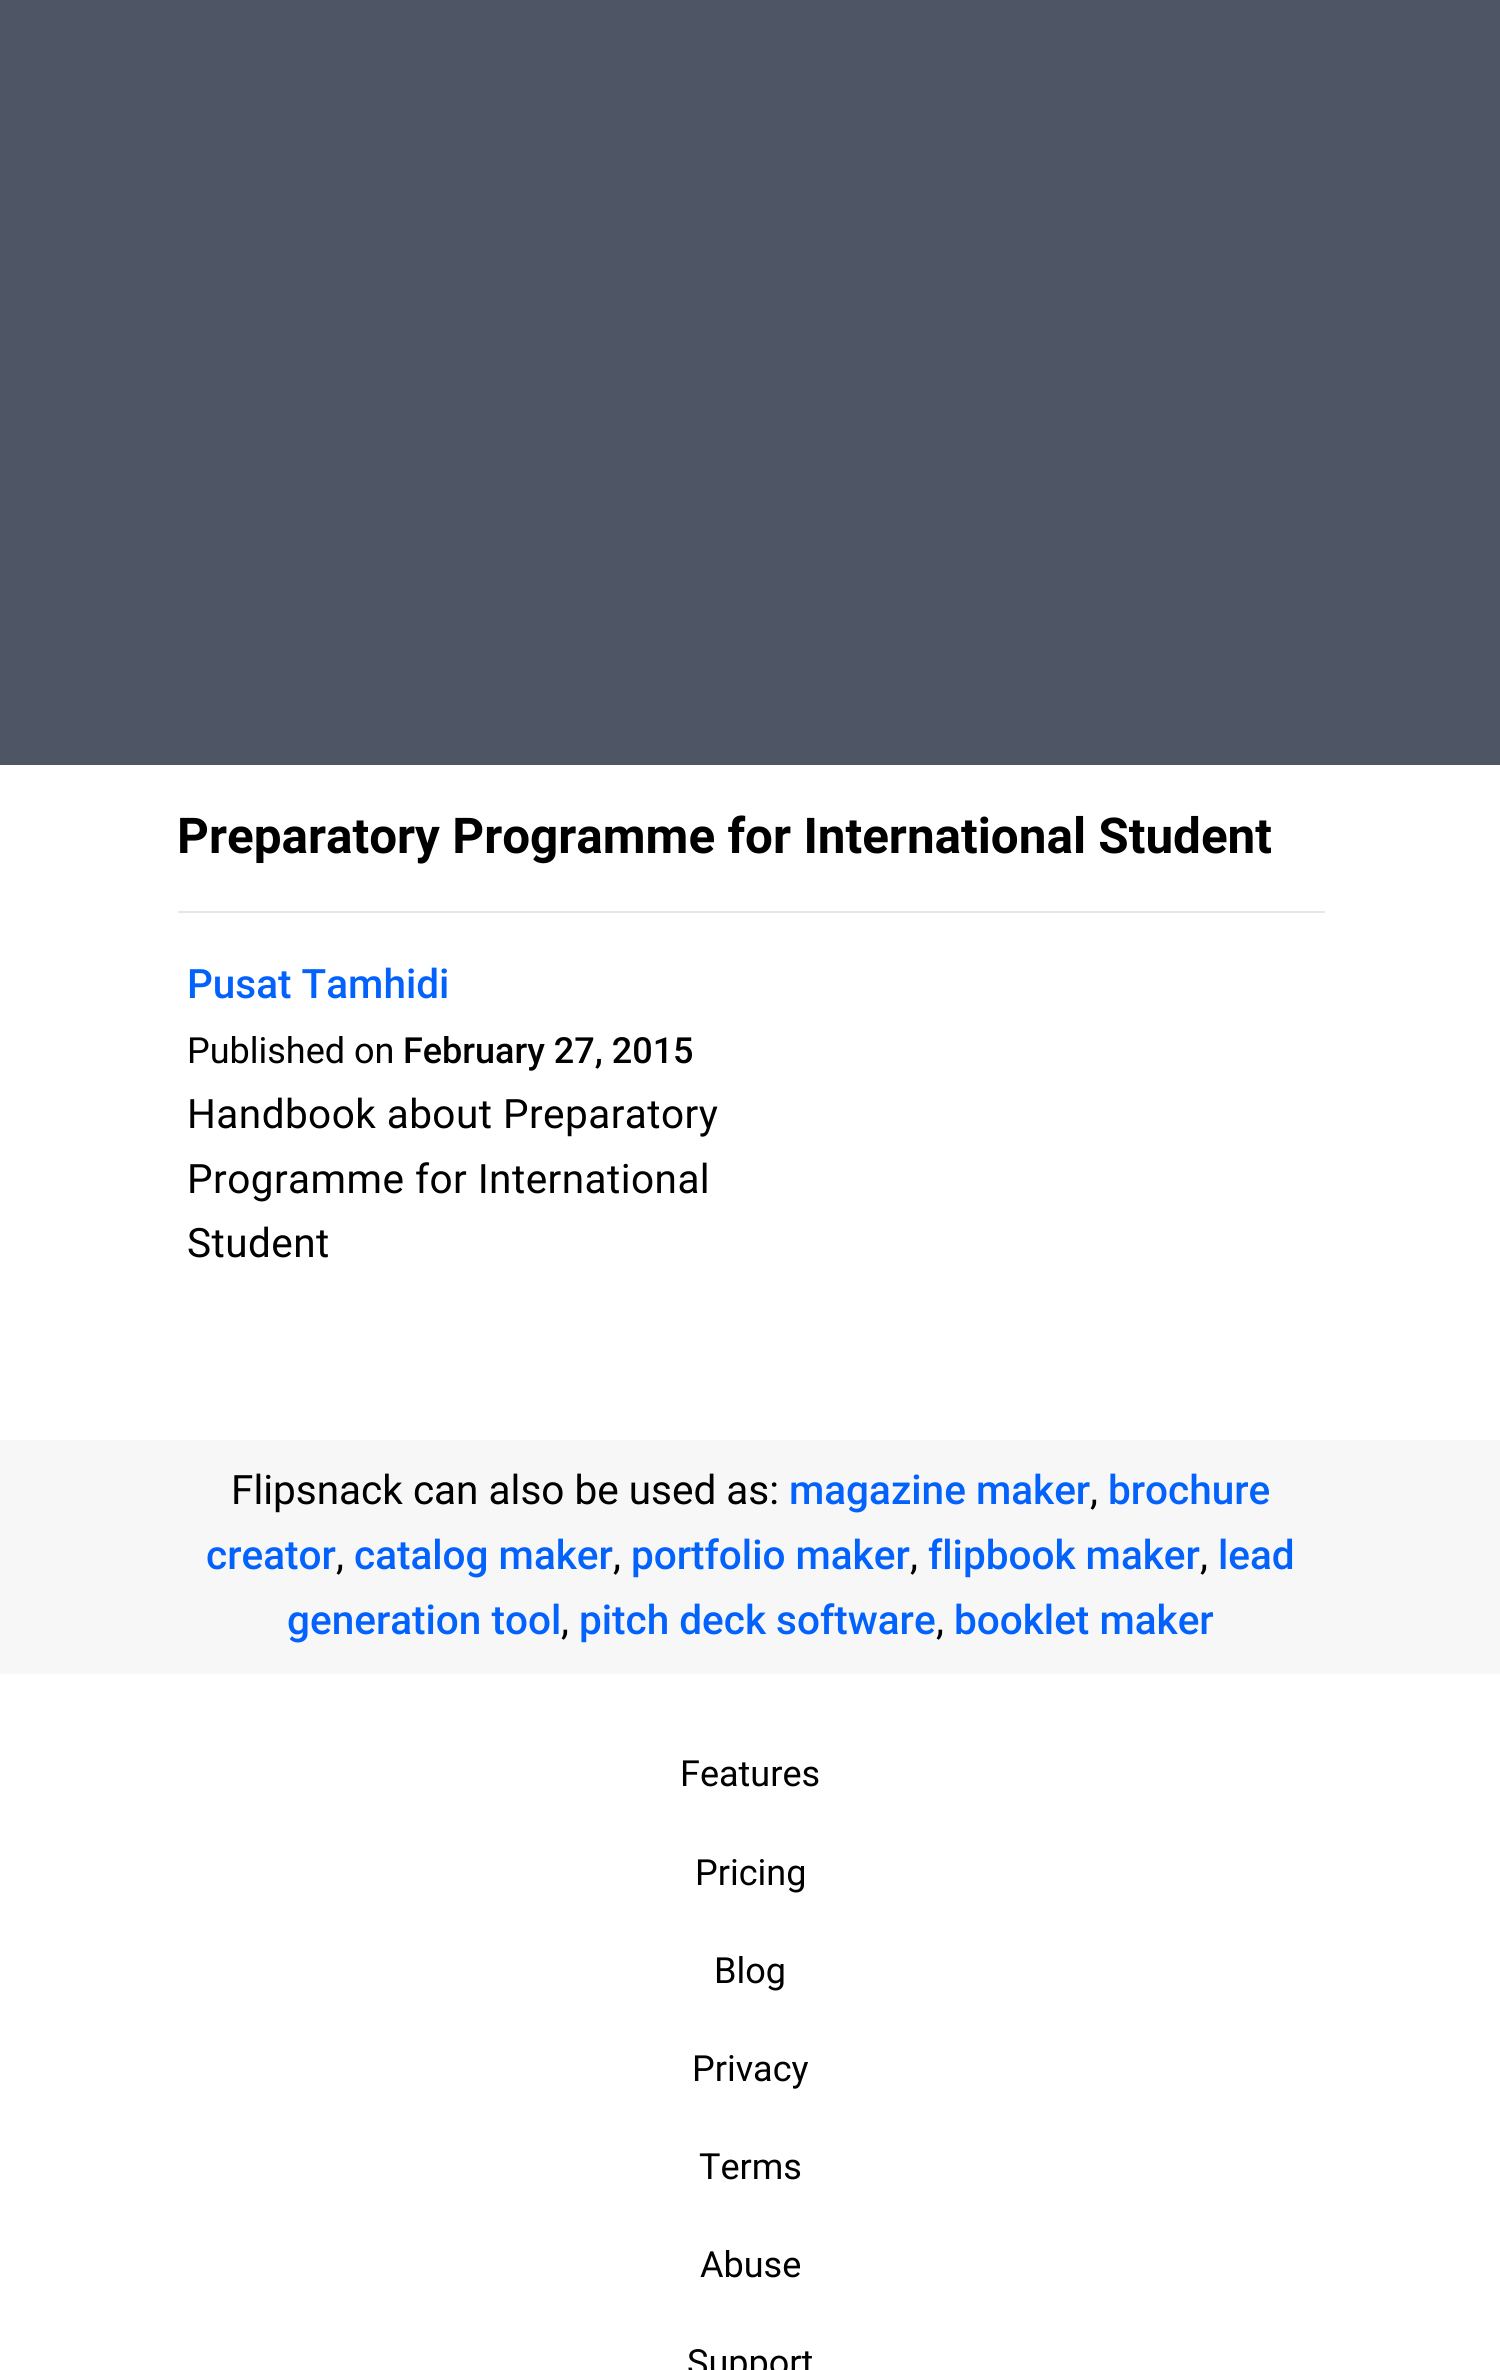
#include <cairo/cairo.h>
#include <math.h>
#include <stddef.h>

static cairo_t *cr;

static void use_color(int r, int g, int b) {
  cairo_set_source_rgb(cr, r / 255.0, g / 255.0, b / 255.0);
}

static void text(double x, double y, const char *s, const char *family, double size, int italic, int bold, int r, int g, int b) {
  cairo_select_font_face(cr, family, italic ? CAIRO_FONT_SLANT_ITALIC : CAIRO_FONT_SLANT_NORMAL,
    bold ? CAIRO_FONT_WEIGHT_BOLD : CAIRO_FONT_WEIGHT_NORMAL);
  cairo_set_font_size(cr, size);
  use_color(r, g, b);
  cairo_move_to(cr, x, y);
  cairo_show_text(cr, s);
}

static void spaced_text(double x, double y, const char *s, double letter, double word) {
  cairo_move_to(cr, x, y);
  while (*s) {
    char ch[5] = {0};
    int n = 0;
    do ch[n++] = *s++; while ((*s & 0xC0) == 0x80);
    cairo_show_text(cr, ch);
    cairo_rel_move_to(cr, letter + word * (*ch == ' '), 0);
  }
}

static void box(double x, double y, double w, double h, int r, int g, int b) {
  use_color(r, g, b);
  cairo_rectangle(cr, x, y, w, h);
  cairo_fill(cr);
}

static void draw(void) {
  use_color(255, 255, 255);
  cairo_paint(cr);
  box(0, 0, 1500, 765, 78, 85, 101);
  box(178, 911, 1147, 2, 230, 230, 230);
  box(0, 1440, 1500, 234, 247, 247, 247);
  text(177, 853, "Preparatory Programme for International Student", "Roboto", 49.4, 0, 1, 0, 0, 0);
  text(187, 998, "Pusat Tamhidi", "Roboto Medium", 40.5, 0, 0, 3, 98, 252);
  text(187, 1063, "Published on", "Roboto", 36, 0, 0, 0, 0, 0);
  text(403, 1063, "February 27, 2015", "Roboto Medium", 36, 0, 0, 0, 0, 0);
  cairo_select_font_face(cr, "Roboto", CAIRO_FONT_SLANT_NORMAL, CAIRO_FONT_WEIGHT_NORMAL);
  cairo_set_font_size(cr, 40.5);
  spaced_text(187, 1128, "Handbook about Preparatory", 0.45, 0);
  spaced_text(187, 1193, "Programme for International", 0.45, 0);
  spaced_text(187, 1257, "Student", 0.45, 0);
  text(231, 1504, "Flipsnack can also be used as:", "Roboto", 40.5, 0, 0, 0, 0, 0);
  text(789, 1504, "magazine maker", "Roboto Medium", 40.5, 0, 0, 3, 98, 252);
  text(1090, 1504, ",", "Roboto", 40.5, 0, 0, 0, 0, 0);
  text(1108, 1504, "brochure", "Roboto Medium", 40.5, 0, 0, 3, 98, 252);
  text(206, 1569, "creator", "Roboto Medium", 40.5, 0, 0, 3, 98, 252);
  text(336, 1569, ",", "Roboto", 40.5, 0, 0, 0, 0, 0);
  text(354, 1569, "catalog maker", "Roboto Medium", 40.5, 0, 0, 3, 98, 252);
  text(613, 1569, ",", "Roboto", 40.5, 0, 0, 0, 0, 0);
  text(631, 1569, "portfolio maker", "Roboto Medium", 40.5, 0, 0, 3, 98, 252);
  text(910, 1569, ",", "Roboto", 40.5, 0, 0, 0, 0, 0);
  text(928, 1569, "flipbook maker", "Roboto Medium", 40.5, 0, 0, 3, 98, 252);
  text(1200, 1569, ",", "Roboto", 40.5, 0, 0, 0, 0, 0);
  text(1218, 1569, "lead", "Roboto Medium", 40.5, 0, 0, 3, 98, 252);
  text(287, 1634, "generation tool", "Roboto Medium", 40.5, 0, 0, 3, 98, 252);
  text(561, 1634, ",", "Roboto", 40.5, 0, 0, 0, 0, 0);
  text(579, 1634, "pitch deck software", "Roboto Medium", 40.5, 0, 0, 3, 98, 252);
  text(936, 1634, ",", "Roboto", 40.5, 0, 0, 0, 0, 0);
  text(954, 1634, "booklet maker", "Roboto Medium", 40.5, 0, 0, 3, 98, 252);
  text(680, 1786, "Features", "Roboto", 36, 0, 0, 0, 0, 0);
  text(695, 1885, "Pricing", "Roboto", 36, 0, 0, 0, 0, 0);
  text(714, 1983, "Blog", "Roboto", 36, 0, 0, 0, 0, 0);
  text(692, 2081, "Privacy", "Roboto", 36, 0, 0, 0, 0, 0);
  text(699, 2179, "Terms", "Roboto", 36, 0, 0, 0, 0, 0);
  text(700, 2277, "Abuse", "Roboto", 36, 0, 0, 0, 0, 0);
  text(687, 2375, "Support", "Roboto", 36, 0, 0, 0, 0, 0);
}

int main(void) {
  cairo_surface_t *surface = cairo_image_surface_create(CAIRO_FORMAT_RGB24, 1500, 2370);
  cr = cairo_create(surface);
  cairo_font_options_t *options = cairo_font_options_create();
  cairo_font_options_set_hint_metrics(options, CAIRO_HINT_METRICS_OFF);
  cairo_font_options_set_hint_style(options, CAIRO_HINT_STYLE_NONE);
  cairo_set_font_options(cr, options);
  cairo_set_miter_limit(cr, 4);
  draw();
  cairo_surface_write_to_png(surface, "out.png");
  cairo_font_options_destroy(options);
  cairo_destroy(cr);
  cairo_surface_destroy(surface);
  return 0;
}
